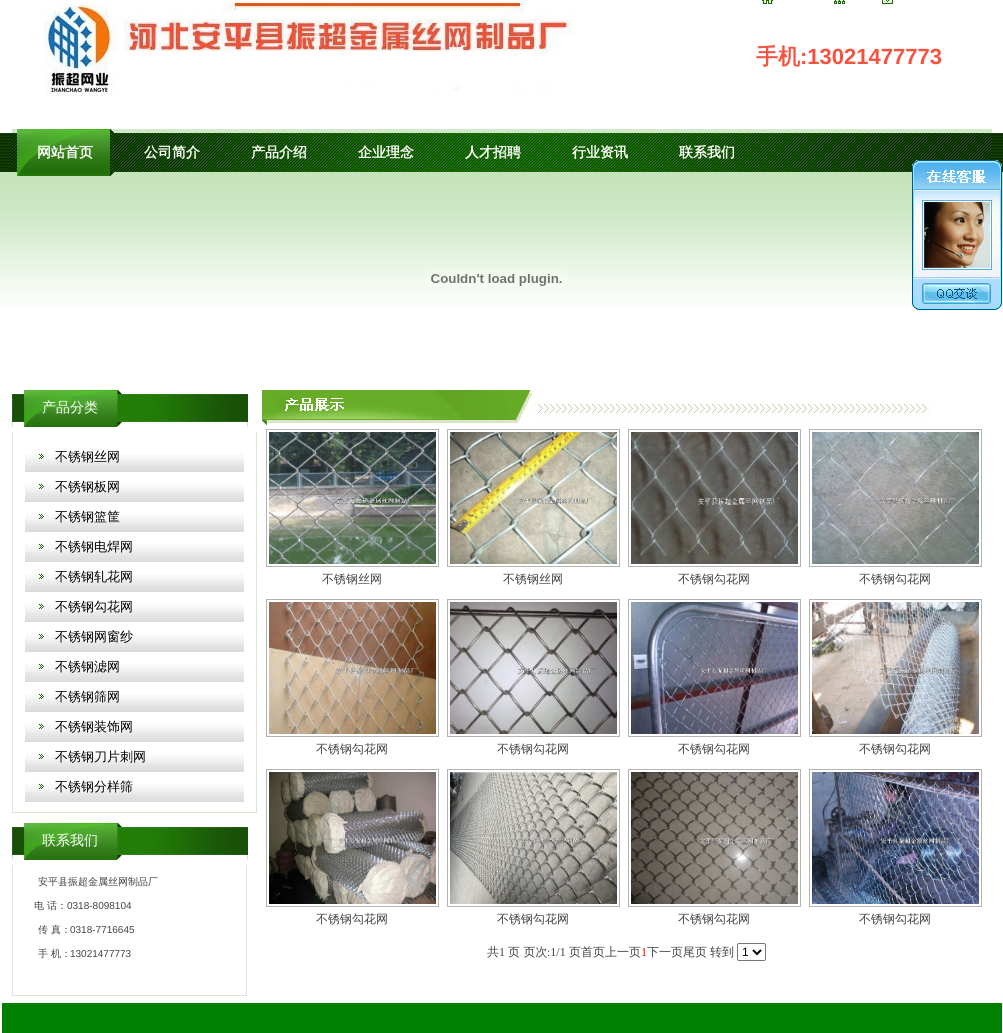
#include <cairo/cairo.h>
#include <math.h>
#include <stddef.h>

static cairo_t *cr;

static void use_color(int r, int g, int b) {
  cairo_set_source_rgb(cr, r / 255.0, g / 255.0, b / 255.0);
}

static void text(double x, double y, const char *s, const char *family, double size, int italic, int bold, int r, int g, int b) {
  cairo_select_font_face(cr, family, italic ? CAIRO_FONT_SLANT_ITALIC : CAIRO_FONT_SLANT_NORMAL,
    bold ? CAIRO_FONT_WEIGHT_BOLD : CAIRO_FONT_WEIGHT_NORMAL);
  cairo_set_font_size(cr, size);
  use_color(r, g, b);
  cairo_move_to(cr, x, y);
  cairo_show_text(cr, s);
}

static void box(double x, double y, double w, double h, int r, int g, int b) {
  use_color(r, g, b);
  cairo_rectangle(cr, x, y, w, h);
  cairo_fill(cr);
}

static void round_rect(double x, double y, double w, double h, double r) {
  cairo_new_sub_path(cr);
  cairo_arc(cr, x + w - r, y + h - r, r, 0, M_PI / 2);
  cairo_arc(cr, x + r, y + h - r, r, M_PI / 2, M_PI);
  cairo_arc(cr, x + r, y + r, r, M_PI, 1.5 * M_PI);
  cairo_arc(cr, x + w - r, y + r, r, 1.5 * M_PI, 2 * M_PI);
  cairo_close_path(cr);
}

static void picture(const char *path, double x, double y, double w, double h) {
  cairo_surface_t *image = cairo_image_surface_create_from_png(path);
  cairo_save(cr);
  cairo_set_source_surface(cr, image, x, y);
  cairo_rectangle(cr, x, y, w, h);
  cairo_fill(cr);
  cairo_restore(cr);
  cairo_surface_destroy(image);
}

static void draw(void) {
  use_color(255, 255, 255);
  cairo_paint(cr);
  picture("img_01.png", 0, 133, 1003, 174);
  picture("img_02.png", 44, 3, 528, 93);
  picture("img_03.png", 762, 0, 11, 4);
  picture("img_04.png", 834, 0, 11, 4);
  picture("img_05.png", 882, 0, 11, 4);
  picture("img_06.png", 12, 129, 980, 43);
  picture("img_07.png", 17, 129, 97, 47);
  picture("img_08.png", 425, 269, 143, 17);
  picture("img_09.png", 12, 390, 236, 37);
  box(256, 432, 1, 381, 219, 230, 211);
  box(12, 812, 245, 1, 219, 230, 211);
  box(12, 432, 1, 381, 219, 230, 211);
  picture("img_10.png", 25, 453, 219, 19);
  picture("img_10.png", 25, 483, 219, 19);
  picture("img_10.png", 25, 513, 219, 19);
  picture("img_10.png", 25, 543, 219, 19);
  picture("img_10.png", 25, 573, 219, 19);
  picture("img_10.png", 25, 603, 219, 19);
  picture("img_10.png", 25, 633, 219, 19);
  picture("img_10.png", 25, 663, 219, 19);
  picture("img_10.png", 25, 693, 219, 19);
  picture("img_10.png", 25, 723, 219, 19);
  picture("img_10.png", 25, 753, 219, 19);
  picture("img_10.png", 25, 783, 219, 19);
  picture("img_09.png", 12, 823, 236, 37);
  box(246, 865, 1, 131, 219, 230, 211);
  box(12, 995, 235, 1, 219, 230, 211);
  box(12, 865, 1, 131, 219, 230, 211);
  picture("img_11.png", 262, 390, 671, 35);
  cairo_rectangle(cr, 266.5, 429.5, 172, 137);
  use_color(179, 179, 179);
  cairo_set_line_width(cr, 1);
  cairo_stroke(cr);
  picture("img_12.png", 269, 432, 167, 132);
  cairo_rectangle(cr, 447.5, 429.5, 172, 137);
  cairo_stroke(cr);
  picture("img_13.png", 450, 432, 167, 132);
  cairo_rectangle(cr, 628.5, 429.5, 172, 137);
  cairo_stroke(cr);
  picture("img_14.png", 631, 432, 167, 132);
  cairo_rectangle(cr, 809.5, 429.5, 172, 137);
  cairo_stroke(cr);
  picture("img_15.png", 812, 432, 167, 132);
  cairo_rectangle(cr, 266.5, 599.5, 172, 137);
  cairo_stroke(cr);
  picture("img_16.png", 269, 602, 167, 132);
  cairo_rectangle(cr, 447.5, 599.5, 172, 137);
  cairo_stroke(cr);
  picture("img_17.png", 450, 602, 167, 132);
  cairo_rectangle(cr, 628.5, 599.5, 172, 137);
  cairo_stroke(cr);
  picture("img_18.png", 631, 602, 167, 132);
  cairo_rectangle(cr, 809.5, 599.5, 172, 137);
  cairo_stroke(cr);
  picture("img_19.png", 812, 602, 167, 132);
  cairo_rectangle(cr, 266.5, 769.5, 172, 137);
  cairo_stroke(cr);
  picture("img_20.png", 269, 772, 167, 132);
  cairo_rectangle(cr, 447.5, 769.5, 172, 137);
  cairo_stroke(cr);
  picture("img_21.png", 450, 772, 167, 132);
  cairo_rectangle(cr, 628.5, 769.5, 172, 137);
  cairo_stroke(cr);
  picture("img_22.png", 631, 772, 167, 132);
  cairo_rectangle(cr, 809.5, 769.5, 172, 137);
  cairo_stroke(cr);
  picture("img_23.png", 812, 772, 167, 132);
  round_rect(737.5, 943.5, 28, 17, 1.5);
  use_color(118, 118, 118);
  cairo_stroke(cr);
  cairo_new_path(cr);
  cairo_move_to(cr, 753, 950);
  cairo_line_to(cr, 757, 954);
  cairo_line_to(cr, 761, 950);
  use_color(0, 0, 0);
  cairo_set_line_width(cr, 2);
  cairo_stroke(cr);
  box(2, 1003, 1000, 30, 0, 128, 1);
  picture("img_24.png", 912, 160, 8, 150);
  picture("img_25.png", 920, 160, 74, 150);
  picture("img_26.png", 922, 200, 70, 70);
  picture("img_27.png", 922, 283, 69, 21);
  picture("img_28.png", 994, 160, 8, 150);
  text(756, 64, "手机", "WenQuanYi Zen Hei", 22, 0, 1, 245, 82, 63);
  text(800, 64, ":13021477773", "Liberation Sans", 22, 0, 1, 245, 82, 63);
  text(37, 157, "网站首页", "WenQuanYi Zen Hei", 14, 0, 1, 255, 255, 255);
  text(144, 157, "公司简介", "WenQuanYi Zen Hei", 14, 0, 1, 255, 255, 255);
  text(251, 157, "产品介绍", "WenQuanYi Zen Hei", 14, 0, 1, 255, 255, 255);
  text(358, 157, "企业理念", "WenQuanYi Zen Hei", 14, 0, 1, 255, 255, 255);
  text(465, 157, "人才招聘", "WenQuanYi Zen Hei", 14, 0, 1, 255, 255, 255);
  text(572, 157, "行业资讯", "WenQuanYi Zen Hei", 14, 0, 1, 255, 255, 255);
  text(679, 157, "联系我们", "WenQuanYi Zen Hei", 14, 0, 1, 255, 255, 255);
  text(42, 412, "产品分类", "WenQuanYi Zen Hei Medium", 14, 0, 0, 255, 255, 255);
  text(55, 461, "不锈钢丝网", "WenQuanYi Zen Hei Medium", 13, 0, 0, 0, 0, 0);
  text(55, 491, "不锈钢板网", "WenQuanYi Zen Hei Medium", 13, 0, 0, 0, 0, 0);
  text(55, 521, "不锈钢篮筐", "WenQuanYi Zen Hei Medium", 13, 0, 0, 0, 0, 0);
  text(55, 551, "不锈钢电焊网", "WenQuanYi Zen Hei Medium", 13, 0, 0, 0, 0, 0);
  text(55, 581, "不锈钢轧花网", "WenQuanYi Zen Hei Medium", 13, 0, 0, 0, 0, 0);
  text(55, 611, "不锈钢勾花网", "WenQuanYi Zen Hei Medium", 13, 0, 0, 0, 0, 0);
  text(55, 641, "不锈钢网窗纱", "WenQuanYi Zen Hei Medium", 13, 0, 0, 0, 0, 0);
  text(55, 671, "不锈钢滤网", "WenQuanYi Zen Hei Medium", 13, 0, 0, 0, 0, 0);
  text(55, 701, "不锈钢筛网", "WenQuanYi Zen Hei Medium", 13, 0, 0, 0, 0, 0);
  text(55, 731, "不锈钢装饰网", "WenQuanYi Zen Hei Medium", 13, 0, 0, 0, 0, 0);
  text(55, 761, "不锈钢刀片刺网", "WenQuanYi Zen Hei Medium", 13, 0, 0, 0, 0, 0);
  text(55, 791, "不锈钢分样筛", "WenQuanYi Zen Hei Medium", 13, 0, 0, 0, 0, 0);
  text(42, 845, "联系我们", "WenQuanYi Zen Hei Medium", 14, 0, 0, 255, 255, 255);
  text(38, 885, "安平县振超金属丝网制品厂", "WenQuanYi Zen Hei Medium", 10, 0, 0, 66, 66, 66);
  text(34, 909, "电 话：", "WenQuanYi Zen Hei Medium", 10, 0, 0, 66, 66, 66);
  text(67, 909, "0318-8098104", "Liberation Sans", 10, 0, 0, 66, 66, 66);
  text(38, 933, "传 真：", "WenQuanYi Zen Hei Medium", 10, 0, 0, 66, 66, 66);
  text(70, 933, "0318-7716645", "Liberation Sans", 10, 0, 0, 66, 66, 66);
  text(38, 957, "手 机：", "WenQuanYi Zen Hei Medium", 10, 0, 0, 66, 66, 66);
  text(70, 957, "13021477773", "Liberation Sans", 10, 0, 0, 66, 66, 66);
  text(322, 583, "不锈钢丝网", "WenQuanYi Zen Hei Medium", 12, 0, 0, 66, 66, 66);
  text(503, 583, "不锈钢丝网", "WenQuanYi Zen Hei Medium", 12, 0, 0, 66, 66, 66);
  text(678, 583, "不锈钢勾花网", "WenQuanYi Zen Hei Medium", 12, 0, 0, 66, 66, 66);
  text(859, 583, "不锈钢勾花网", "WenQuanYi Zen Hei Medium", 12, 0, 0, 66, 66, 66);
  text(316, 753, "不锈钢勾花网", "WenQuanYi Zen Hei Medium", 12, 0, 0, 66, 66, 66);
  text(497, 753, "不锈钢勾花网", "WenQuanYi Zen Hei Medium", 12, 0, 0, 66, 66, 66);
  text(678, 753, "不锈钢勾花网", "WenQuanYi Zen Hei Medium", 12, 0, 0, 66, 66, 66);
  text(859, 753, "不锈钢勾花网", "WenQuanYi Zen Hei Medium", 12, 0, 0, 66, 66, 66);
  text(316, 923, "不锈钢勾花网", "WenQuanYi Zen Hei Medium", 12, 0, 0, 66, 66, 66);
  text(497, 923, "不锈钢勾花网", "WenQuanYi Zen Hei Medium", 12, 0, 0, 66, 66, 66);
  text(678, 923, "不锈钢勾花网", "WenQuanYi Zen Hei Medium", 12, 0, 0, 66, 66, 66);
  text(859, 923, "不锈钢勾花网", "WenQuanYi Zen Hei Medium", 12, 0, 0, 66, 66, 66);
  text(487, 956, "共", "WenQuanYi Zen Hei Medium", 12, 0, 0, 66, 66, 66);
  text(499, 956, "1", "Liberation Serif", 12, 0, 0, 66, 66, 66);
  text(508, 956, "页 页次", "WenQuanYi Zen Hei Medium", 12, 0, 0, 66, 66, 66);
  text(547, 956, ":1/1", "Liberation Serif", 12, 0, 0, 66, 66, 66);
  text(569, 956, "页首页上一页", "WenQuanYi Zen Hei Medium", 12, 0, 0, 66, 66, 66);
  text(641, 956, "1", "Liberation Serif", 12, 0, 0, 255, 0, 0);
  text(647, 956, "下一页尾页", "WenQuanYi Zen Hei Medium", 12, 0, 0, 66, 66, 66);
  text(710, 956, "转到", "WenQuanYi Zen Hei Medium", 12, 0, 0, 66, 66, 66);
  text(742, 956, "1", "Liberation Sans", 12, 0, 0, 0, 0, 0);
}

int main(void) {
  cairo_surface_t *surface = cairo_image_surface_create(CAIRO_FORMAT_RGB24, 1003, 1033);
  cr = cairo_create(surface);
  cairo_font_options_t *options = cairo_font_options_create();
  cairo_font_options_set_hint_metrics(options, CAIRO_HINT_METRICS_OFF);
  cairo_font_options_set_hint_style(options, CAIRO_HINT_STYLE_NONE);
  cairo_set_font_options(cr, options);
  cairo_set_miter_limit(cr, 4);
  draw();
  cairo_surface_write_to_png(surface, "out.png");
  cairo_font_options_destroy(options);
  cairo_destroy(cr);
  cairo_surface_destroy(surface);
  return 0;
}
